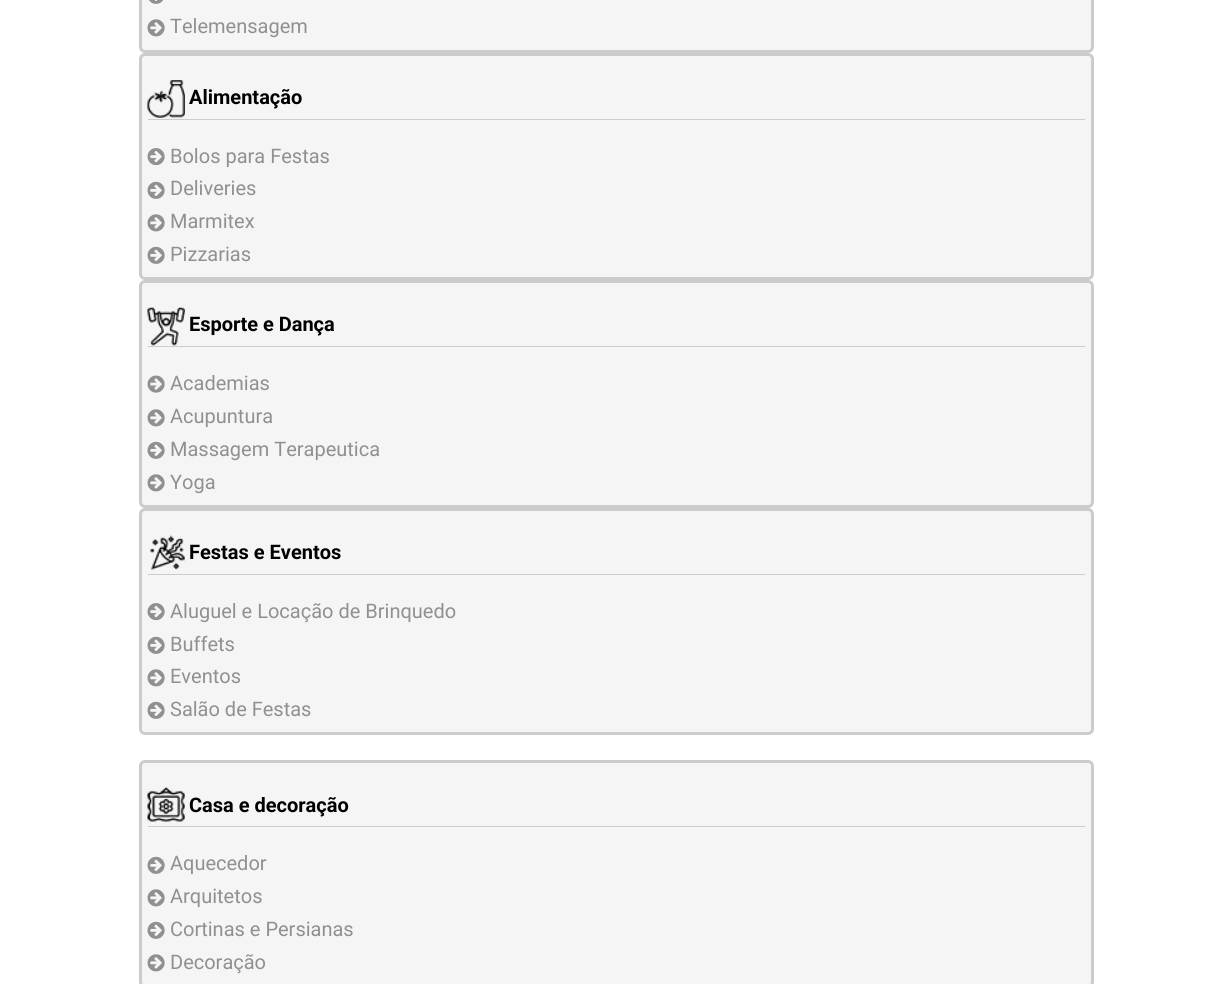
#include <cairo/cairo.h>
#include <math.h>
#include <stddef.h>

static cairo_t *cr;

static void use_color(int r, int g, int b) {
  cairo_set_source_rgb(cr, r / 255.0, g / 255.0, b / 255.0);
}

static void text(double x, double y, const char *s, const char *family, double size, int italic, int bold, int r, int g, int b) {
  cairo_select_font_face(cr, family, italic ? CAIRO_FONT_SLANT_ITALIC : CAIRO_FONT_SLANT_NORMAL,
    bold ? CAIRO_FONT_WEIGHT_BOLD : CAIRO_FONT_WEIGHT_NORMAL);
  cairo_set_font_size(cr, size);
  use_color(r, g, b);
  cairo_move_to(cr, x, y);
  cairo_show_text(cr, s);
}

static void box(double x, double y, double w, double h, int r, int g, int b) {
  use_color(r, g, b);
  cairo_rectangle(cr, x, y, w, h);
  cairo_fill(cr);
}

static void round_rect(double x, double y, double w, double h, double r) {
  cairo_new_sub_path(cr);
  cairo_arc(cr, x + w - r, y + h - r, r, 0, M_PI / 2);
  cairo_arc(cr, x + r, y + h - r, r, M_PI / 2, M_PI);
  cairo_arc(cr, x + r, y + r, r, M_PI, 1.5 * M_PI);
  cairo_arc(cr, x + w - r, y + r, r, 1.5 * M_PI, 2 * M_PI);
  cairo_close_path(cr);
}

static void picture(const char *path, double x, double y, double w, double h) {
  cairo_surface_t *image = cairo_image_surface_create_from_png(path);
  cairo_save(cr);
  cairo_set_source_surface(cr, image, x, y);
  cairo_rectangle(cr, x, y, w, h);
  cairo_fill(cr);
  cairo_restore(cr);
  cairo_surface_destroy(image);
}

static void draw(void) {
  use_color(255, 255, 255);
  cairo_paint(cr);
  use_color(245, 245, 245);
  round_rect(140.5, -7.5, 952, 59, 4.5);
  cairo_fill_preserve(cr);
  use_color(204, 204, 204);
  cairo_set_line_width(cr, 3);
  cairo_stroke(cr);
  picture("img_01.png", 149, 0, 14, 4);
  picture("img_02.png", 147, 19, 18, 18);
  use_color(245, 245, 245);
  round_rect(140.5, 54.5, 952, 224, 4.5);
  cairo_fill_preserve(cr);
  use_color(204, 204, 204);
  cairo_stroke(cr);
  box(148, 119, 937, 1, 204, 204, 204);
  picture("img_03.png", 147, 80, 38, 38);
  picture("img_04.png", 147, 148, 18, 18);
  picture("img_05.png", 147, 181, 18, 18);
  picture("img_02.png", 147, 214, 18, 18);
  picture("img_05.png", 147, 246, 18, 18);
  use_color(245, 245, 245);
  round_rect(140.5, 281.5, 952, 225, 4.5);
  cairo_fill_preserve(cr);
  use_color(204, 204, 204);
  cairo_stroke(cr);
  box(148, 346, 937, 1, 204, 204, 204);
  picture("img_06.png", 147, 307, 38, 39);
  picture("img_07.png", 147, 375, 18, 18);
  picture("img_02.png", 147, 409, 18, 18);
  picture("img_05.png", 147, 441, 18, 18);
  picture("img_02.png", 147, 474, 18, 18);
  use_color(245, 245, 245);
  round_rect(140.5, 509.5, 952, 224, 4.5);
  cairo_fill_preserve(cr);
  use_color(204, 204, 204);
  cairo_stroke(cr);
  box(148, 574, 937, 1, 204, 204, 204);
  picture("img_08.png", 149, 535, 36, 36);
  picture("img_04.png", 147, 603, 18, 18);
  picture("img_05.png", 147, 636, 18, 18);
  picture("img_02.png", 147, 669, 18, 18);
  picture("img_05.png", 147, 701, 18, 18);
  use_color(245, 245, 245);
  round_rect(140.5, 761.5, 952, 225, 4.5);
  cairo_fill_preserve(cr);
  use_color(204, 204, 204);
  cairo_stroke(cr);
  box(148, 826, 937, 1, 204, 204, 204);
  picture("img_09.png", 147, 787, 38, 35);
  picture("img_05.png", 147, 856, 18, 18);
  picture("img_02.png", 147, 889, 18, 18);
  picture("img_05.png", 147, 921, 18, 18);
  picture("img_02.png", 147, 954, 18, 18);
  text(170, 33, "Telemensagem", "Roboto", 20, 0, 0, 144, 144, 144);
  text(189, 104, "Alimentação", "Roboto", 20, 0, 1, 0, 0, 0);
  text(170, 163, "Bolos para Festas", "Roboto", 20, 0, 0, 144, 144, 144);
  text(170, 195, "Deliveries", "Roboto", 20, 0, 0, 144, 144, 144);
  text(170, 228, "Marmitex", "Roboto", 20, 0, 0, 144, 144, 144);
  text(170, 261, "Pizzarias", "Roboto", 20, 0, 0, 144, 144, 144);
  text(189, 331, "Esporte e Dança", "Roboto", 20, 0, 1, 0, 0, 0);
  text(170, 390, "Academias", "Roboto", 20, 0, 0, 144, 144, 144);
  text(170, 423, "Acupuntura", "Roboto", 20, 0, 0, 144, 144, 144);
  text(170, 456, "Massagem Terapeutica", "Roboto", 20, 0, 0, 144, 144, 144);
  text(170, 489, "Yoga", "Roboto", 20, 0, 0, 144, 144, 144);
  text(189, 559, "Festas e Eventos", "Roboto", 20, 0, 1, 0, 0, 0);
  text(170, 618, "Aluguel e Locação de Brinquedo", "Roboto", 20, 0, 0, 144, 144, 144);
  text(170, 651, "Buffets", "Roboto", 20, 0, 0, 144, 144, 144);
  text(170, 683, "Eventos", "Roboto", 20, 0, 0, 144, 144, 144);
  text(170, 716, "Salão de Festas", "Roboto", 20, 0, 0, 144, 144, 144);
  text(189, 812, "Casa e decoração", "Roboto", 20, 0, 1, 0, 0, 0);
  text(170, 870, "Aquecedor", "Roboto", 20, 0, 0, 144, 144, 144);
  text(170, 903, "Arquitetos", "Roboto", 20, 0, 0, 144, 144, 144);
  text(170, 936, "Cortinas e Persianas", "Roboto", 20, 0, 0, 144, 144, 144);
  text(170, 969, "Decoração", "Roboto", 20, 0, 0, 144, 144, 144);
}

int main(void) {
  cairo_surface_t *surface = cairo_image_surface_create(CAIRO_FORMAT_RGB24, 1231, 984);
  cr = cairo_create(surface);
  cairo_font_options_t *options = cairo_font_options_create();
  cairo_font_options_set_hint_metrics(options, CAIRO_HINT_METRICS_OFF);
  cairo_font_options_set_hint_style(options, CAIRO_HINT_STYLE_NONE);
  cairo_set_font_options(cr, options);
  cairo_set_miter_limit(cr, 4);
  draw();
  cairo_surface_write_to_png(surface, "out.png");
  cairo_font_options_destroy(options);
  cairo_destroy(cr);
  cairo_surface_destroy(surface);
  return 0;
}
